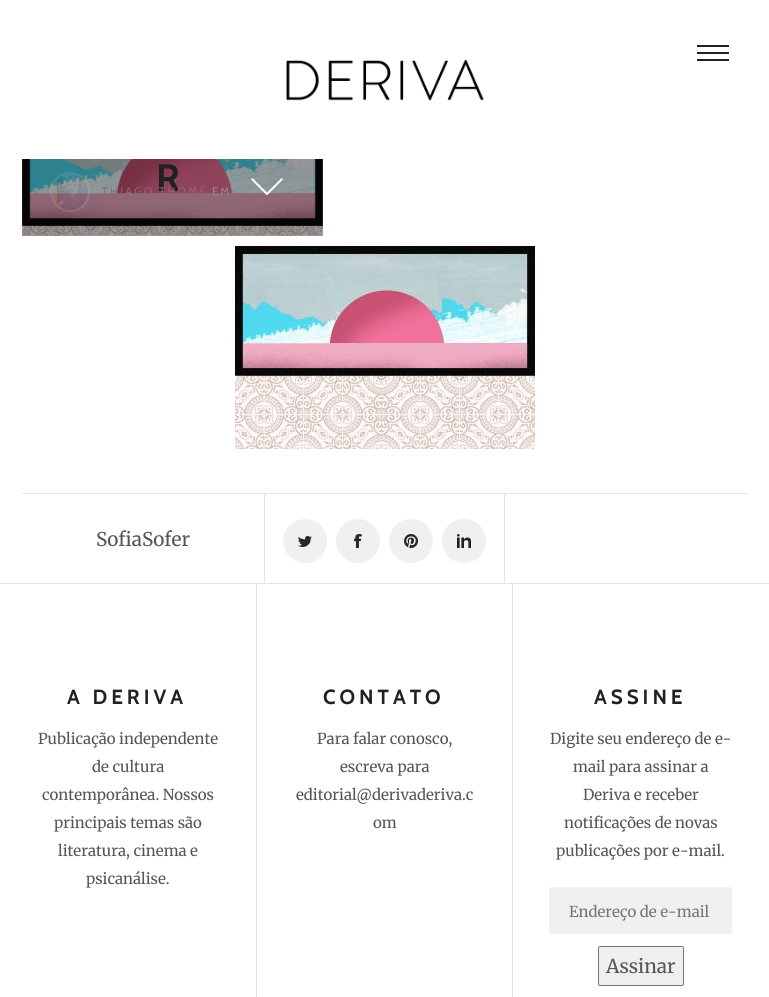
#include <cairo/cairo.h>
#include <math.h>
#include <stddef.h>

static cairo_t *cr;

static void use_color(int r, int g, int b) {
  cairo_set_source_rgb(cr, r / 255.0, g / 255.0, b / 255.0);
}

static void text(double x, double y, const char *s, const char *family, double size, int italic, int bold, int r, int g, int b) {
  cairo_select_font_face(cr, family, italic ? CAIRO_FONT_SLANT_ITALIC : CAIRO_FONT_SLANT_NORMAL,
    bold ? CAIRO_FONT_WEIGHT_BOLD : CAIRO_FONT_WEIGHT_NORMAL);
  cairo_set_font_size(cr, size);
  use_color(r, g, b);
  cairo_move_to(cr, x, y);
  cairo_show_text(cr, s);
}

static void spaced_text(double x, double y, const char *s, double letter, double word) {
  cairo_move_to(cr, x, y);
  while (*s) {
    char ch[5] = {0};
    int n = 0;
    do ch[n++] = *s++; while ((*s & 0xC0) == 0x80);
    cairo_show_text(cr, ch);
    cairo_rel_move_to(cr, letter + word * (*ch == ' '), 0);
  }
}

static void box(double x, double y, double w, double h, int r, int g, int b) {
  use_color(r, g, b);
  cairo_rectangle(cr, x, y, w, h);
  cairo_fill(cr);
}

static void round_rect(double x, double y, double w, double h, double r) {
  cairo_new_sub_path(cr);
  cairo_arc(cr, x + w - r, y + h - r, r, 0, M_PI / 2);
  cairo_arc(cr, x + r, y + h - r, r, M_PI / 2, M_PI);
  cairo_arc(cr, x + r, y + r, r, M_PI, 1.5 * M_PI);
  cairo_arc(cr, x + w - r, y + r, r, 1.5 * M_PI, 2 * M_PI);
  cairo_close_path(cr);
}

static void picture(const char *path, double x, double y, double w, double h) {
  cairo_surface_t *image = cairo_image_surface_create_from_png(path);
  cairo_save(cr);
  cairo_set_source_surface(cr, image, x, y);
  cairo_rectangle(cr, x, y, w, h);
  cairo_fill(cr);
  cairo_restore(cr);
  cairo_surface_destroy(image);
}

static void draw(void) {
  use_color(255, 255, 255);
  cairo_paint(cr);
  box(697, 52, 32, 2, 33, 33, 33);
  box(697, 45, 32, 2, 33, 33, 33);
  box(697, 59, 32, 2, 33, 33, 33);
  picture("img_01.png", 286, 59, 198, 42);
  picture("img_02.png", 22, 159, 301, 77);
  picture("img_03.png", 251, 178, 32, 17);
  cairo_arc(cr, 70, 192, 19, 0, 2 * M_PI);
  cairo_set_source_rgba(cr, 1, 1, 1, 0.1);
  cairo_stroke(cr);
  picture("img_04.png", 52, 174, 36, 36);
  cairo_set_source_rgba(cr, 1, 1, 1, 0.03);
  cairo_rectangle(cr, 102, 201, 106, 1);
  cairo_fill(cr);
  picture("img_05.png", 235, 246, 300, 203);
  box(22, 493, 725, 1, 227, 227, 227);
  box(504, 493, 1, 90, 227, 227, 227);
  box(264, 493, 1, 90, 227, 227, 227);
  use_color(240, 240, 240);
  cairo_arc(cr, 305, 541, 22, 0, 2 * M_PI);
  cairo_fill(cr);
  picture("img_06.png", 298, 536, 14, 11);
  cairo_arc(cr, 358, 541, 22, 0, 2 * M_PI);
  cairo_fill(cr);
  picture("img_07.png", 354, 534, 8, 14);
  cairo_arc(cr, 411, 541, 22, 0, 2 * M_PI);
  cairo_fill(cr);
  picture("img_08.png", 404, 534, 14, 14);
  cairo_arc(cr, 464, 541, 22, 0, 2 * M_PI);
  cairo_fill(cr);
  picture("img_09.png", 457, 534, 14, 14);
  box(0, 583, 769, 1, 227, 227, 227);
  box(512, 584, 1, 413, 227, 227, 227);
  box(256, 584, 1, 413, 227, 227, 227);
  use_color(240, 240, 240);
  round_rect(549.5, 887.5, 182, 46, 2.5);
  cairo_fill_preserve(cr);
  cairo_set_line_width(cr, 1);
  cairo_stroke(cr);
  use_color(239, 239, 239);
  round_rect(598.5, 946.5, 85, 39, 1.5);
  cairo_fill_preserve(cr);
  use_color(118, 118, 118);
  cairo_stroke(cr);
  cairo_select_font_face(cr, "Cabin", CAIRO_FONT_SLANT_NORMAL, CAIRO_FONT_WEIGHT_BOLD);
  cairo_set_font_size(cr, 38);
  use_color(33, 33, 33);
  spaced_text(156, 191, "R", 8, 0);
  cairo_select_font_face(cr, "Cabin", CAIRO_FONT_SLANT_NORMAL, CAIRO_FONT_WEIGHT_NORMAL);
  cairo_set_font_size(cr, 11);
  use_color(145, 99, 114);
  spaced_text(102, 195, "THIAGO THOMÉ", 2.25, 0);
  use_color(152, 136, 144);
  spaced_text(212, 195, "EM", 2.25, 0);
  text(96, 546, "SofiaSofer", "Merriweather", 19, 0, 0, 85, 85, 85);
  cairo_select_font_face(cr, "Cabin", CAIRO_FONT_SLANT_NORMAL, CAIRO_FONT_WEIGHT_BOLD);
  cairo_set_font_size(cr, 20.5);
  use_color(33, 33, 33);
  spaced_text(67, 704, "A DERIVA", 4, 0);
  text(38, 744, "Publicação independente", "Merriweather", 15, 0, 0, 85, 85, 85);
  text(92, 772, "de cultura", "Merriweather", 15, 0, 0, 85, 85, 85);
  text(42, 800, "contemporânea. Nossos", "Merriweather", 15, 0, 0, 85, 85, 85);
  text(54, 828, "principais temas são", "Merriweather", 15, 0, 0, 85, 85, 85);
  text(58, 856, "literatura, cinema e", "Merriweather", 15, 0, 0, 85, 85, 85);
  text(86, 884, "psicanálise.", "Merriweather", 15, 0, 0, 85, 85, 85);
  cairo_select_font_face(cr, "Cabin", CAIRO_FONT_SLANT_NORMAL, CAIRO_FONT_WEIGHT_BOLD);
  cairo_set_font_size(cr, 20.5);
  use_color(33, 33, 33);
  spaced_text(323, 704, "CONTATO", 4, 0);
  text(317, 744, "Para falar conosco,", "Merriweather", 15, 0, 0, 85, 85, 85);
  text(340, 772, "escreva para", "Merriweather", 15, 0, 0, 85, 85, 85);
  text(296, 800, "editorial@derivaderiva.c", "Merriweather", 15, 0, 0, 85, 85, 85);
  text(373, 828, "om", "Merriweather", 15, 0, 0, 85, 85, 85);
  cairo_select_font_face(cr, "Cabin", CAIRO_FONT_SLANT_NORMAL, CAIRO_FONT_WEIGHT_BOLD);
  cairo_set_font_size(cr, 20.5);
  use_color(33, 33, 33);
  spaced_text(594, 704, "ASSINE", 4, 0);
  text(550, 744, "Digite seu endereço de e-", "Merriweather", 15, 0, 0, 85, 85, 85);
  text(573, 772, "mail para assinar a", "Merriweather", 15, 0, 0, 85, 85, 85);
  text(583, 800, "Deriva e receber", "Merriweather", 15, 0, 0, 85, 85, 85);
  text(564, 828, "notificações de novas", "Merriweather", 15, 0, 0, 85, 85, 85);
  text(556, 856, "publicações por e-mail.", "Merriweather", 15, 0, 0, 85, 85, 85);
  text(569, 917, "Endereço de e-mail", "Merriweather", 15, 0, 0, 117, 117, 117);
  text(606, 973, "Assinar", "Merriweather", 19, 0, 0, 85, 85, 85);
}

int main(void) {
  cairo_surface_t *surface = cairo_image_surface_create(CAIRO_FORMAT_RGB24, 769, 997);
  cr = cairo_create(surface);
  cairo_font_options_t *options = cairo_font_options_create();
  cairo_font_options_set_hint_metrics(options, CAIRO_HINT_METRICS_OFF);
  cairo_font_options_set_hint_style(options, CAIRO_HINT_STYLE_NONE);
  cairo_set_font_options(cr, options);
  cairo_set_miter_limit(cr, 4);
  draw();
  cairo_surface_write_to_png(surface, "out.png");
  cairo_font_options_destroy(options);
  cairo_destroy(cr);
  cairo_surface_destroy(surface);
  return 0;
}
